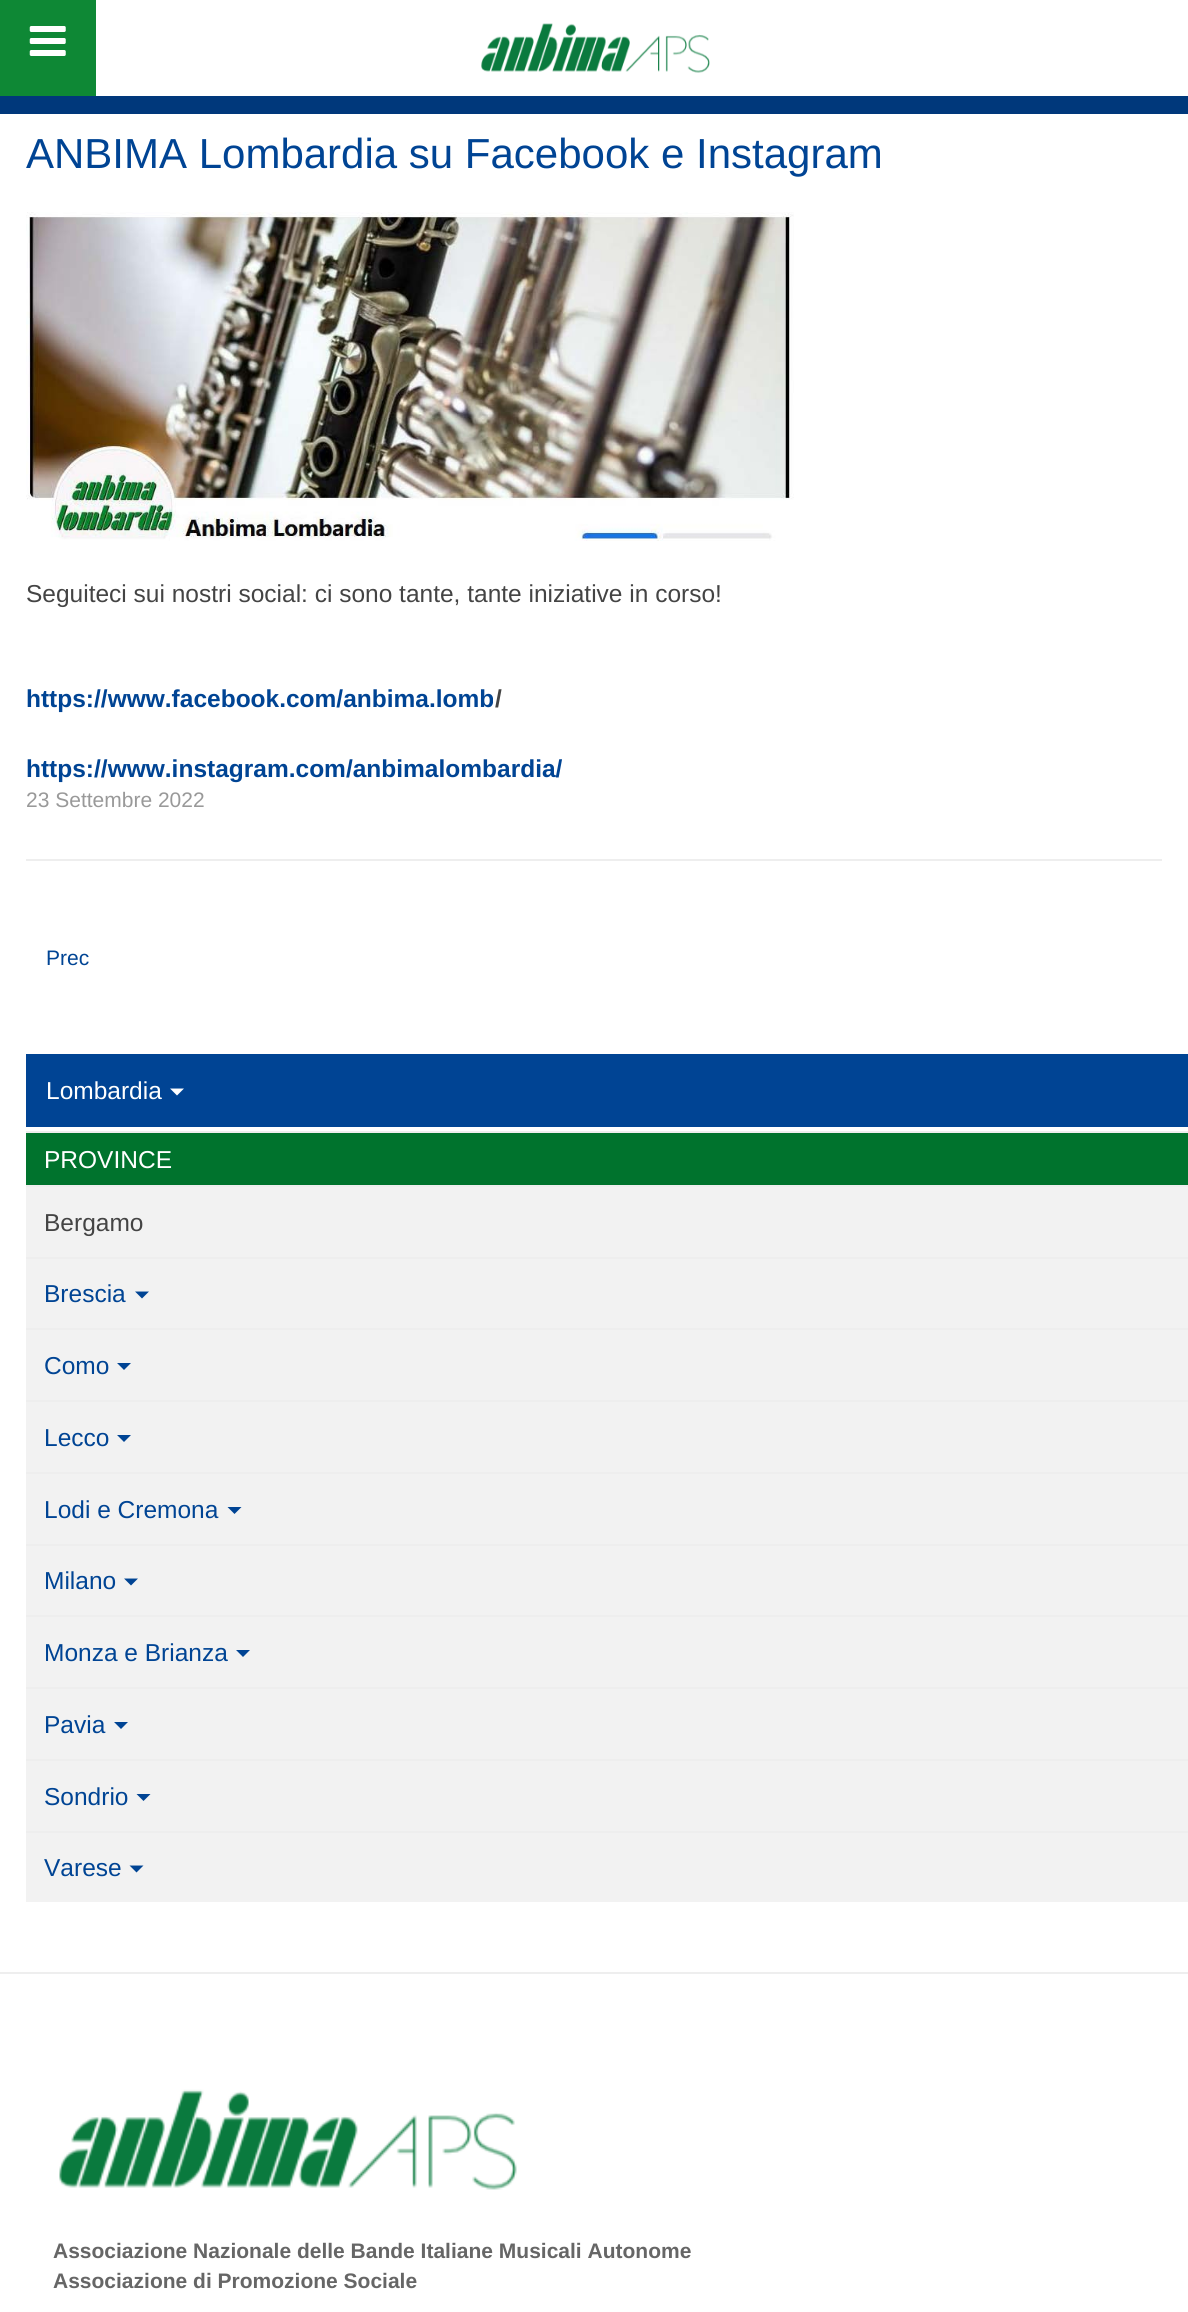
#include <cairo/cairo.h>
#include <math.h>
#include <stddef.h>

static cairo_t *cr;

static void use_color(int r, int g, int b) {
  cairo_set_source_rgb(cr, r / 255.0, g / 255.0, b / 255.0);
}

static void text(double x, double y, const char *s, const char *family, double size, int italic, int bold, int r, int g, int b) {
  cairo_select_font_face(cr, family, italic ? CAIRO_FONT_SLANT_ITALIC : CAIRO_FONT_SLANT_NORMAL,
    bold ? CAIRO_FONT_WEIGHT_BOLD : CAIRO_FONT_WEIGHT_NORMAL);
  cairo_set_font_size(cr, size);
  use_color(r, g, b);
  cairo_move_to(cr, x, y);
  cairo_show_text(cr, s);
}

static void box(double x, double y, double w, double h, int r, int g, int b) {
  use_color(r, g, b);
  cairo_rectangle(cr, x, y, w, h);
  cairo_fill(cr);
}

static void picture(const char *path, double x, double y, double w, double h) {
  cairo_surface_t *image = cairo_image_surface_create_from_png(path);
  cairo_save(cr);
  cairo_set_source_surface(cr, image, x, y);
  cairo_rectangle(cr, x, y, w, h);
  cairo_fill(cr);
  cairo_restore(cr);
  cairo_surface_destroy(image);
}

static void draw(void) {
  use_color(255, 255, 255);
  cairo_paint(cr);
  box(0, 96, 1188, 18, 0, 56, 123);
  box(0, 0, 96, 96, 14, 136, 53);
  picture("img_01.png", 29, 26, 37, 30);
  picture("img_02.png", 481, 23, 229, 50);
  picture("img_03.png", 26, 212, 768, 329);
  box(26, 859, 1136, 2, 238, 238, 238);
  cairo_rectangle(cr, 27, 1055, 1160, 71);
  use_color(0, 68, 148);
  cairo_stroke(cr);
  box(28, 1056, 1158, 69, 0, 68, 148);
  use_color(255, 255, 255);
  cairo_new_path(cr);
  cairo_move_to(cr, 170, 1088.5);
  cairo_line_to(cr, 184, 1088.5);
  cairo_line_to(cr, 177, 1095.5);
  cairo_close_path(cr);
  cairo_fill(cr);
  box(26, 1133, 1162, 52, 0, 115, 45);
  box(26, 1131, 1162, 2, 238, 238, 238);
  box(26, 1187, 1162, 70, 242, 242, 242);
  box(26, 1185, 1162, 2, 238, 238, 238);
  box(26, 1259, 1162, 69, 242, 242, 242);
  box(26, 1257, 1162, 2, 238, 238, 238);
  use_color(0, 68, 148);
  cairo_new_path(cr);
  cairo_move_to(cr, 135, 1291.5);
  cairo_line_to(cr, 149, 1291.5);
  cairo_line_to(cr, 142, 1298.5);
  cairo_close_path(cr);
  cairo_fill(cr);
  box(26, 1330, 1162, 70, 242, 242, 242);
  box(26, 1328, 1162, 2, 238, 238, 238);
  use_color(0, 68, 148);
  cairo_new_path(cr);
  cairo_move_to(cr, 117, 1363);
  cairo_line_to(cr, 131, 1363);
  cairo_line_to(cr, 124, 1370);
  cairo_close_path(cr);
  cairo_fill(cr);
  box(26, 1402, 1162, 70, 242, 242, 242);
  box(26, 1400, 1162, 2, 238, 238, 238);
  use_color(0, 68, 148);
  cairo_new_path(cr);
  cairo_move_to(cr, 117, 1435);
  cairo_line_to(cr, 131, 1435);
  cairo_line_to(cr, 124, 1442);
  cairo_close_path(cr);
  cairo_fill(cr);
  box(26, 1474, 1162, 70, 242, 242, 242);
  box(26, 1472, 1162, 2, 238, 238, 238);
  use_color(0, 68, 148);
  cairo_new_path(cr);
  cairo_move_to(cr, 227.5, 1507);
  cairo_line_to(cr, 241.5, 1507);
  cairo_line_to(cr, 234.5, 1514);
  cairo_close_path(cr);
  cairo_fill(cr);
  box(26, 1546, 1162, 69, 242, 242, 242);
  box(26, 1544, 1162, 2, 238, 238, 238);
  use_color(0, 68, 148);
  cairo_new_path(cr);
  cairo_move_to(cr, 124, 1578.5);
  cairo_line_to(cr, 138, 1578.5);
  cairo_line_to(cr, 131, 1585.5);
  cairo_close_path(cr);
  cairo_fill(cr);
  box(26, 1617, 1162, 70, 242, 242, 242);
  box(26, 1615, 1162, 2, 238, 238, 238);
  use_color(0, 68, 148);
  cairo_new_path(cr);
  cairo_move_to(cr, 236, 1650);
  cairo_line_to(cr, 250, 1650);
  cairo_line_to(cr, 243, 1657);
  cairo_close_path(cr);
  cairo_fill(cr);
  box(26, 1689, 1162, 70, 242, 242, 242);
  box(26, 1687, 1162, 2, 238, 238, 238);
  use_color(0, 68, 148);
  cairo_new_path(cr);
  cairo_move_to(cr, 114, 1722);
  cairo_line_to(cr, 128, 1722);
  cairo_line_to(cr, 121, 1729);
  cairo_close_path(cr);
  cairo_fill(cr);
  box(26, 1761, 1162, 70, 242, 242, 242);
  box(26, 1759, 1162, 2, 238, 238, 238);
  use_color(0, 68, 148);
  cairo_new_path(cr);
  cairo_move_to(cr, 136.5, 1794);
  cairo_line_to(cr, 150.5, 1794);
  cairo_line_to(cr, 143.5, 1801);
  cairo_close_path(cr);
  cairo_fill(cr);
  box(26, 1833, 1162, 69, 242, 242, 242);
  box(26, 1831, 1162, 2, 238, 238, 238);
  use_color(0, 68, 148);
  cairo_new_path(cr);
  cairo_move_to(cr, 129.5, 1865.5);
  cairo_line_to(cr, 143.5, 1865.5);
  cairo_line_to(cr, 136.5, 1872.5);
  cairo_close_path(cr);
  cairo_fill(cr);
  box(0, 1972, 1188, 2, 238, 238, 238);
  picture("img_04.png", 59, 2089, 458, 101);
  text(26, 168, "ANBIMA Lombardia su Facebook e Instagram", "Liberation Sans", 42, 0, 0, 0, 68, 148);
  text(26, 602, "Seguiteci sui nostri social: ci sono tante, tante iniziative in corso!", "Liberation Sans", 24.5, 0, 0, 68, 68, 68);
  text(26, 707, "https://www.facebook.com/anbima.lomb", "Liberation Sans", 24.5, 0, 1, 0, 68, 148);
  text(495, 707, "/", "Liberation Sans", 24.5, 0, 1, 68, 68, 68);
  text(26, 777, "https://www.instagram.com/anbimalombardia/", "Liberation Sans", 24.5, 0, 1, 0, 68, 148);
  text(26, 807, "23 Settembre 2022", "Liberation Sans", 21, 0, 0, 153, 153, 153);
  text(46, 965, "Prec", "Liberation Sans", 21, 0, 0, 0, 68, 148);
  text(46, 1099, "Lombardia", "Liberation Sans", 24.5, 0, 0, 255, 255, 255);
  text(44, 1168, "PROVINCE", "Liberation Sans", 24.5, 0, 0, 255, 255, 255);
  text(44, 1231, "Bergamo", "Liberation Sans", 24.5, 0, 0, 68, 68, 68);
  text(44, 1302, "Brescia", "Liberation Sans", 24.5, 0, 0, 0, 68, 148);
  text(44, 1374, "Como", "Liberation Sans", 24.5, 0, 0, 0, 68, 148);
  text(44, 1446, "Lecco", "Liberation Sans", 24.5, 0, 0, 0, 68, 148);
  text(44, 1518, "Lodi e Cremona", "Liberation Sans", 24.5, 0, 0, 0, 68, 148);
  text(44, 1589, "Milano", "Liberation Sans", 24.5, 0, 0, 0, 68, 148);
  text(44, 1661, "Monza e Brianza", "Liberation Sans", 24.5, 0, 0, 0, 68, 148);
  text(44, 1733, "Pavia", "Liberation Sans", 24.5, 0, 0, 0, 68, 148);
  text(44, 1805, "Sondrio", "Liberation Sans", 24.5, 0, 0, 0, 68, 148);
  text(44, 1876, "Varese", "Liberation Sans", 24.5, 0, 0, 0, 68, 148);
  text(53, 2258, "Associazione Nazionale delle Bande Italiane Musicali Autonome", "Liberation Sans", 21, 0, 1, 102, 102, 102);
  text(53, 2288, "Associazione di Promozione Sociale", "Liberation Sans", 21, 0, 1, 102, 102, 102);
}

int main(void) {
  cairo_surface_t *surface = cairo_image_surface_create(CAIRO_FORMAT_RGB24, 1188, 2312);
  cr = cairo_create(surface);
  cairo_font_options_t *options = cairo_font_options_create();
  cairo_font_options_set_hint_metrics(options, CAIRO_HINT_METRICS_OFF);
  cairo_font_options_set_hint_style(options, CAIRO_HINT_STYLE_NONE);
  cairo_set_font_options(cr, options);
  cairo_set_miter_limit(cr, 4);
  draw();
  cairo_surface_write_to_png(surface, "out.png");
  cairo_font_options_destroy(options);
  cairo_destroy(cr);
  cairo_surface_destroy(surface);
  return 0;
}
